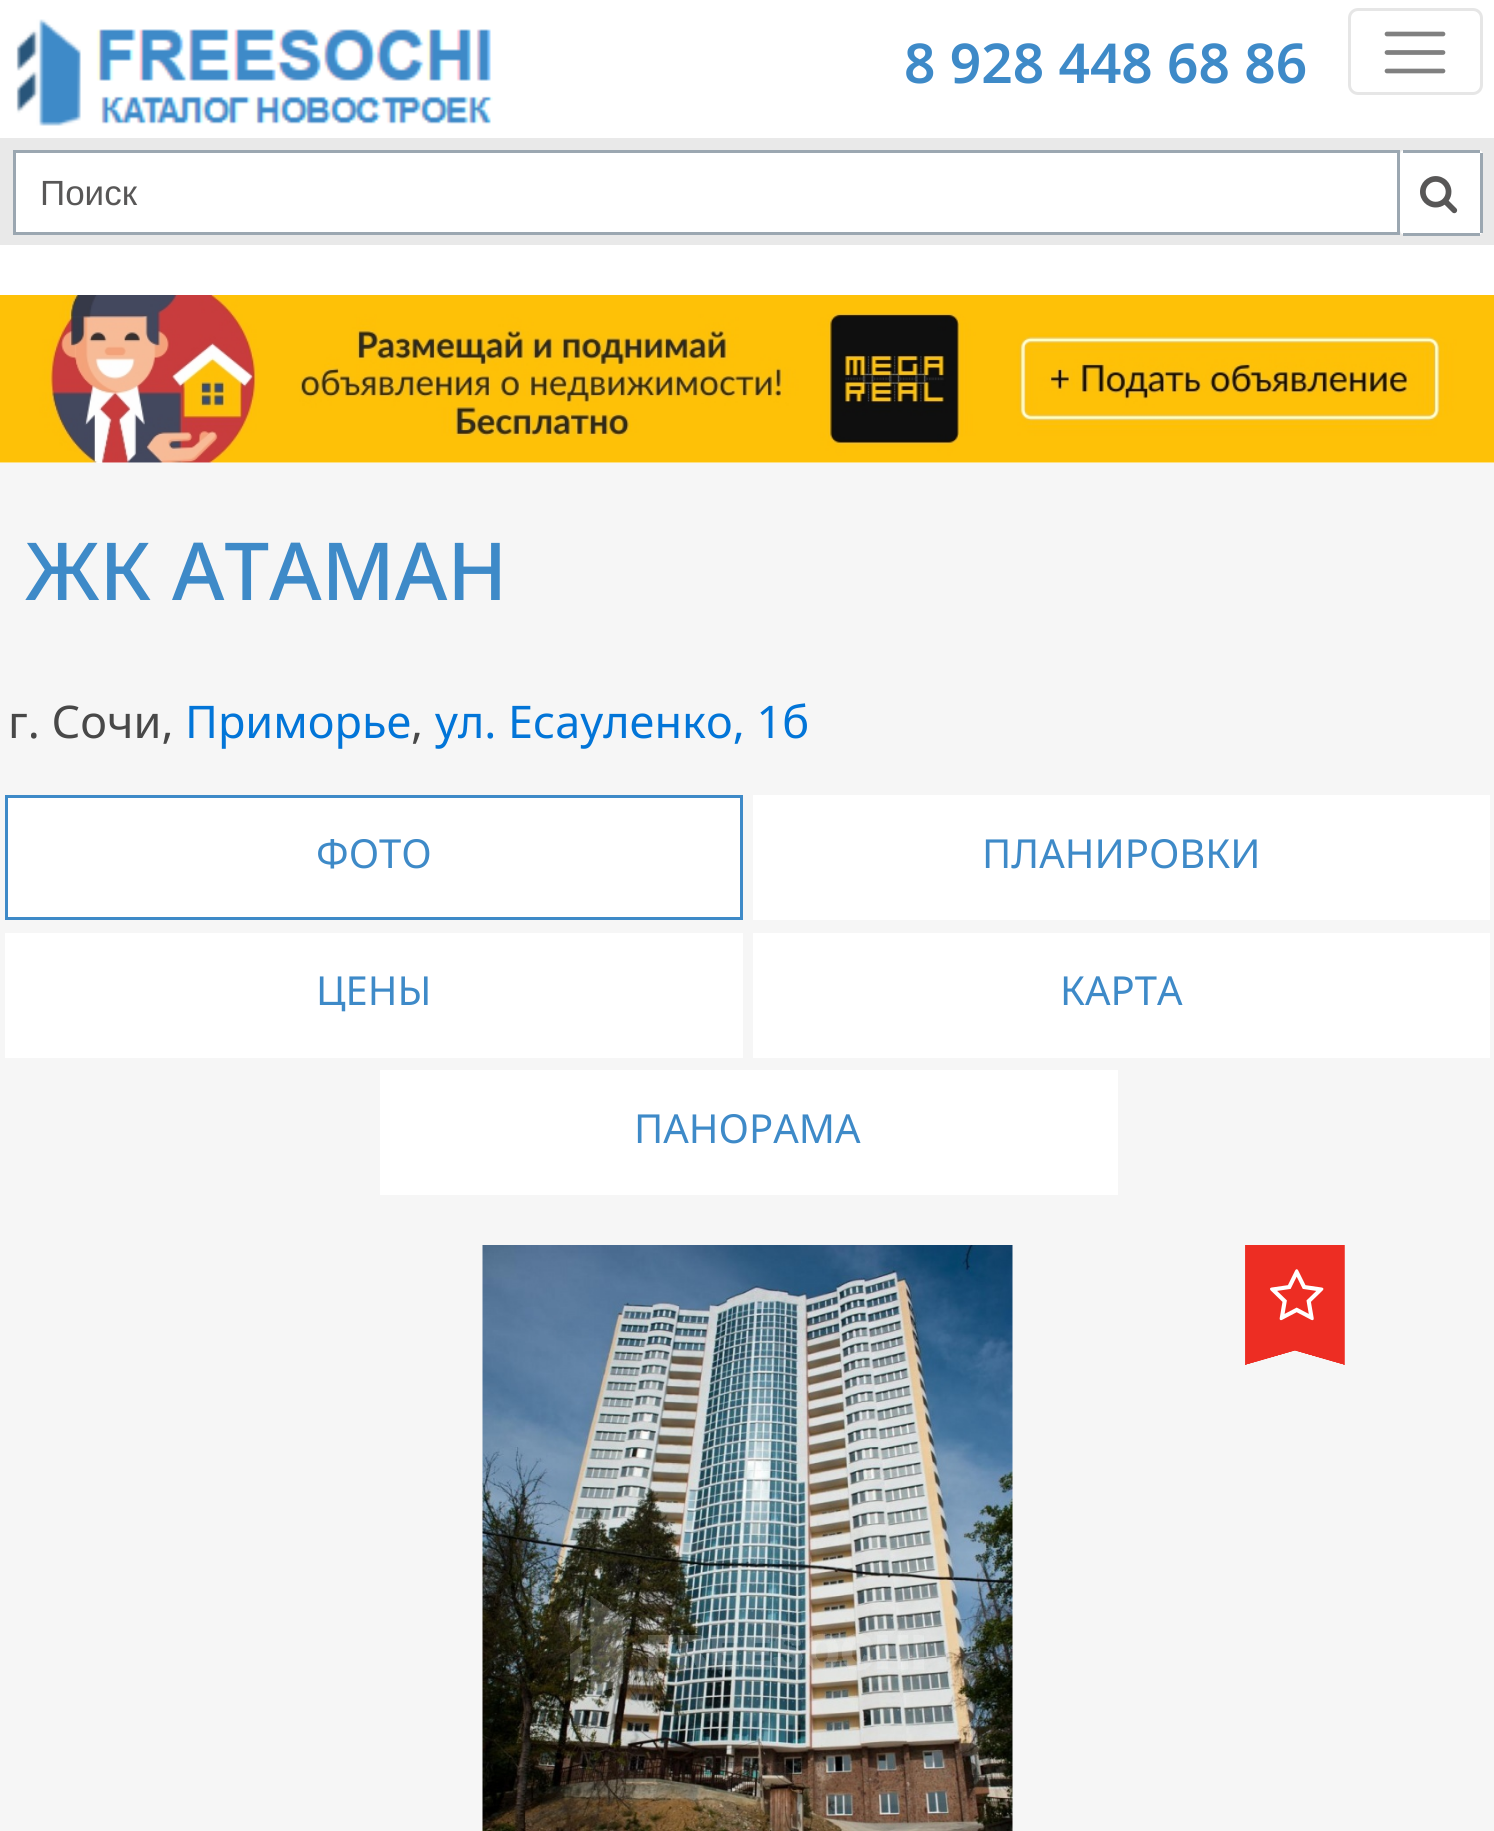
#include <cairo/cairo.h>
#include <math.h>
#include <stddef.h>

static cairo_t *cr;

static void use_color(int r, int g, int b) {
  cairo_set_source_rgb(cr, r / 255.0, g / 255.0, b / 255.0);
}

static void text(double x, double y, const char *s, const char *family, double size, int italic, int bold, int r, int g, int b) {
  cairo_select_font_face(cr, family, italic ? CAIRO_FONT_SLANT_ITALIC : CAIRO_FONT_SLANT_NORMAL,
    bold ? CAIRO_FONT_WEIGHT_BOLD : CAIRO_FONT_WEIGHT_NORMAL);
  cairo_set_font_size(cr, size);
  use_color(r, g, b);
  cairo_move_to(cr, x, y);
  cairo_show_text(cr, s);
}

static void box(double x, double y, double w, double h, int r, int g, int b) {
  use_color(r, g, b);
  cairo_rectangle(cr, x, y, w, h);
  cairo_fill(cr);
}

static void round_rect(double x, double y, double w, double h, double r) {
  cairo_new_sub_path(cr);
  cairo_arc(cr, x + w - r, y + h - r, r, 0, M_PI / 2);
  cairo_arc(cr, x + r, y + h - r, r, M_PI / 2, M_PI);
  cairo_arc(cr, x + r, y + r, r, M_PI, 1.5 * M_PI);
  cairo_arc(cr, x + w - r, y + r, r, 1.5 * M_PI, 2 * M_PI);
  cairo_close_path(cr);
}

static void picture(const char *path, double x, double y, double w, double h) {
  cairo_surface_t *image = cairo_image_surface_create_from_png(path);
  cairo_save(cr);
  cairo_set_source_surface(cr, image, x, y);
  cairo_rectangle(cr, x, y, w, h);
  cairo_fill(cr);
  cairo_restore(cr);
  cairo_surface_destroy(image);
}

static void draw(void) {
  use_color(246, 246, 246);
  cairo_paint(cr);
  box(0, 0, 1494, 138, 255, 255, 255);
  picture("img_01.png", 16, 19, 477, 107);
  round_rect(1349.5, 9.5, 132, 84, 8.5);
  use_color(230, 230, 230);
  cairo_set_line_width(cr, 3);
  cairo_stroke(cr);
  cairo_new_path(cr);
  cairo_move_to(cr, 1387, 34);
  cairo_line_to(cr, 1443, 34);
  cairo_move_to(cr, 1387, 52.5);
  cairo_line_to(cr, 1443, 52.5);
  cairo_move_to(cr, 1387, 71);
  cairo_line_to(cr, 1443, 71);
  use_color(128, 128, 128);
  cairo_set_line_width(cr, 4.7);
  cairo_set_line_cap(cr, CAIRO_LINE_CAP_ROUND);
  cairo_stroke(cr);
  box(0, 138, 1494, 107, 233, 233, 233);
  use_color(255, 255, 255);
  cairo_rectangle(cr, 14.5, 151.5, 1384, 82);
  cairo_fill_preserve(cr);
  use_color(155, 167, 177);
  cairo_set_line_width(cr, 3);
  cairo_set_line_cap(cr, CAIRO_LINE_CAP_BUTT);
  cairo_stroke(cr);
  use_color(255, 255, 255);
  round_rect(1400, 150, 83, 85, 5);
  cairo_fill(cr);
  box(1403, 150, 77, 3, 155, 167, 177);
  box(1480, 153, 3, 80, 155, 167, 177);
  box(1403, 233, 77, 3, 155, 167, 177);
  picture("img_02.png", 1420, 176, 38, 38);
  box(0, 245, 1494, 218, 255, 255, 255);
  picture("img_03.png", 0, 295, 1494, 168);
  cairo_rectangle(cr, 6.5, 796.5, 735, 122);
  cairo_fill_preserve(cr);
  use_color(62, 138, 200);
  cairo_stroke(cr);
  box(753, 795, 737, 125, 255, 255, 255);
  box(5, 933, 738, 125, 255, 255, 255);
  box(753, 933, 737, 125, 255, 255, 255);
  box(380, 1070, 738, 125, 255, 255, 255);
  picture("img_04.png", 482, 1245, 531, 586);
  picture("img_05.png", 1245, 1245, 100, 120);
  picture("img_06.png", 1270, 1269, 54, 52);
  text(904, 83, "8 928 448 68 86", "Noto Sans SemiBold", 55, 0, 0, 62, 138, 200);
  text(40, 205, "Поиск", "Liberation Sans", 35, 0, 0, 88, 87, 87);
  text(25, 600, "ЖК АТАМАН", "Noto Sans Medium", 80, 0, 0, 62, 138, 200);
  text(8, 738, "г. Сочи,", "Noto Sans", 45, 0, 0, 72, 72, 72);
  text(185, 738, "Приморье", "Noto Sans", 45, 0, 0, 2, 117, 216);
  text(411, 738, ",", "Noto Sans", 45, 0, 0, 72, 72, 72);
  text(435, 738, "ул. Есауленко, 1б", "Noto Sans", 45, 0, 0, 2, 117, 216);
  text(316, 868, "ФОТО", "Noto Sans", 40, 0, 0, 62, 138, 200);
  text(982, 868, "ПЛАНИРОВКИ", "Noto Sans", 40, 0, 0, 62, 138, 200);
  text(316, 1005, "ЦЕНЫ", "Noto Sans", 40, 0, 0, 62, 138, 200);
  text(1060, 1005, "КАРТА", "Noto Sans", 40, 0, 0, 62, 138, 200);
  text(634, 1143, "ПАНОРАМА", "Noto Sans", 40, 0, 0, 62, 138, 200);
}

int main(void) {
  cairo_surface_t *surface = cairo_image_surface_create(CAIRO_FORMAT_RGB24, 1494, 1831);
  cr = cairo_create(surface);
  cairo_font_options_t *options = cairo_font_options_create();
  cairo_font_options_set_hint_metrics(options, CAIRO_HINT_METRICS_OFF);
  cairo_font_options_set_hint_style(options, CAIRO_HINT_STYLE_NONE);
  cairo_set_font_options(cr, options);
  cairo_set_miter_limit(cr, 4);
  draw();
  cairo_surface_write_to_png(surface, "out.png");
  cairo_font_options_destroy(options);
  cairo_destroy(cr);
  cairo_surface_destroy(surface);
  return 0;
}
